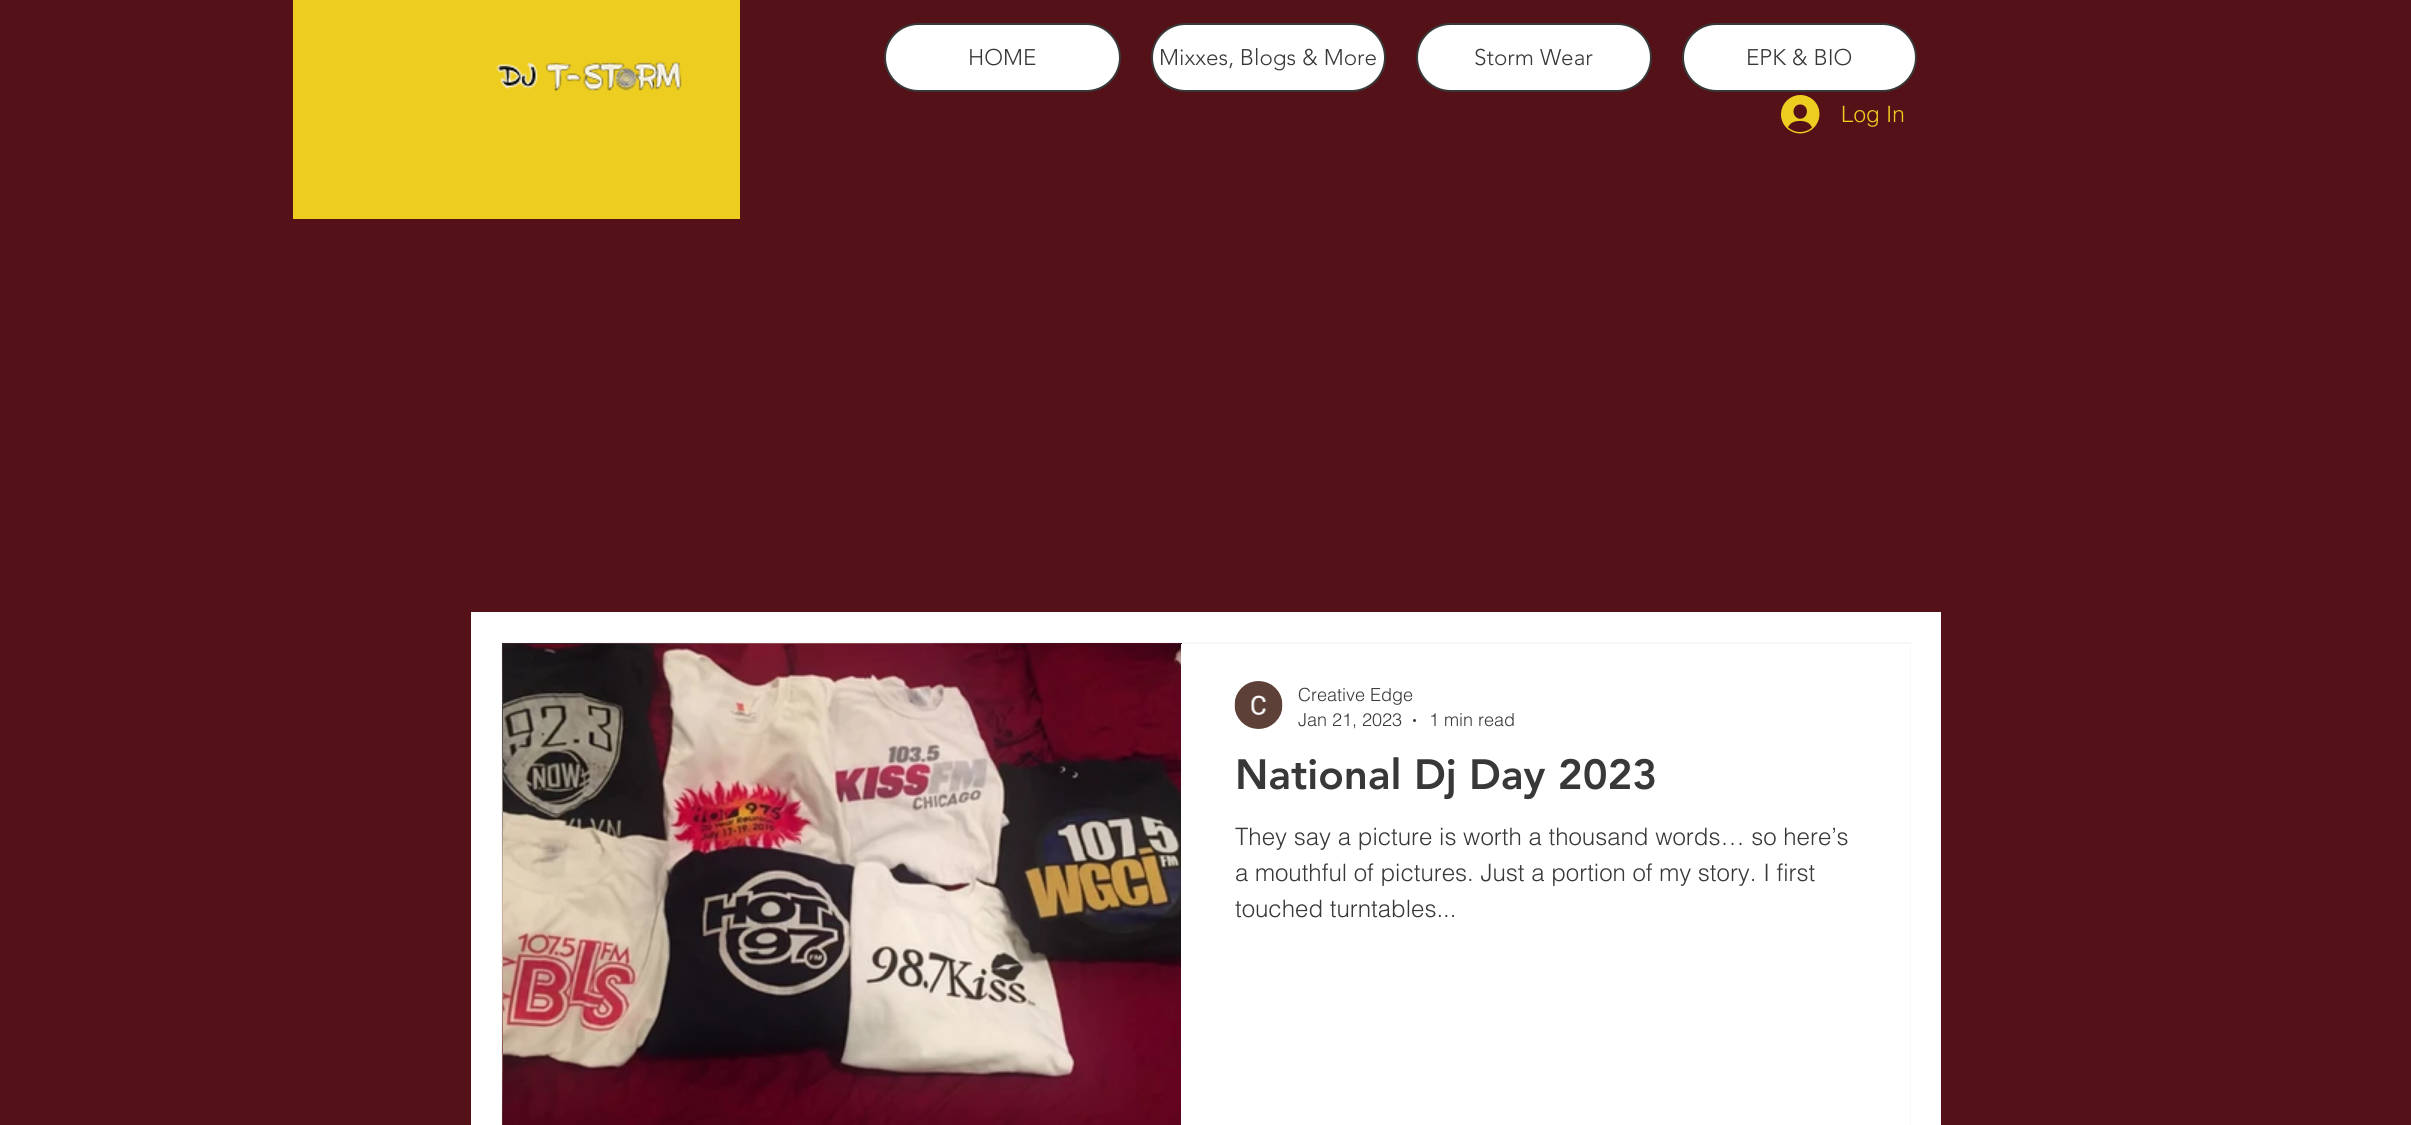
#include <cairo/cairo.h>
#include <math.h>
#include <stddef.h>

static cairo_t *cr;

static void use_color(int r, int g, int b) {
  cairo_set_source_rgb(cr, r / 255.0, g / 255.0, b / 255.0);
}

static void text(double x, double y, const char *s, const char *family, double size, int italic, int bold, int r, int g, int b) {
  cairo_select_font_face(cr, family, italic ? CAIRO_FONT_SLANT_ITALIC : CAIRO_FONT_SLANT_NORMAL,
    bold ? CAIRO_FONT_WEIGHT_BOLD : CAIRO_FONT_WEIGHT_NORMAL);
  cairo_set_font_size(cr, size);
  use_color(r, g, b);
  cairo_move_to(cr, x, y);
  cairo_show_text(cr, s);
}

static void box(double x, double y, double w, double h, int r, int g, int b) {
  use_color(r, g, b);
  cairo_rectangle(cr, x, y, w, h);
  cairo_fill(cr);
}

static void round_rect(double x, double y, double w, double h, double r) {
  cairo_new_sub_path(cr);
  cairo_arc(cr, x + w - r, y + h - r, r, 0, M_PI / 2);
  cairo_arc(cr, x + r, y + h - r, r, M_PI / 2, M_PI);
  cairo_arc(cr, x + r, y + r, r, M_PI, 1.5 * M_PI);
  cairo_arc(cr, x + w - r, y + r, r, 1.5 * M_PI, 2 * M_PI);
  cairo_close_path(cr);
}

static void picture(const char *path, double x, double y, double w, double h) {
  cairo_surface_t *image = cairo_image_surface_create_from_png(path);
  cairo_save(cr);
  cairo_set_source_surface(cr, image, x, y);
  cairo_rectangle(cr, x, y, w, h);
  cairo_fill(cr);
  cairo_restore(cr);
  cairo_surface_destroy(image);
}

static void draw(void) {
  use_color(85, 17, 24);
  cairo_paint(cr);
  box(293, 0, 447, 219, 237, 205, 31);
  picture("img_01.png", 496, 61, 186, 31);
  use_color(255, 255, 255);
  round_rect(885, 24, 235, 67, 33.5);
  cairo_fill_preserve(cr);
  use_color(56, 56, 56);
  cairo_stroke(cr);
  use_color(255, 255, 255);
  round_rect(1152, 24, 233, 67, 33.5);
  cairo_fill_preserve(cr);
  use_color(56, 56, 56);
  cairo_stroke(cr);
  use_color(255, 255, 255);
  round_rect(1417, 24, 234, 67, 33.5);
  cairo_fill_preserve(cr);
  use_color(56, 56, 56);
  cairo_stroke(cr);
  use_color(255, 255, 255);
  round_rect(1683, 24, 233, 67, 33.5);
  cairo_fill_preserve(cr);
  use_color(56, 56, 56);
  cairo_stroke(cr);
  picture("img_02.png", 1781, 95, 39, 39);
  box(471, 612, 1470, 513, 255, 255, 255);
  cairo_rectangle(cr, 502, 643, 1408, 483);
  use_color(247, 247, 247);
  cairo_stroke(cr);
  picture("img_03.png", 502, 643, 680, 482);
  picture("img_04.png", 503, 644, 678, 481);
  box(1181, 644, 729, 481, 255, 255, 255);
  picture("img_05.png", 1234, 681, 49, 48);
  use_color(59, 58, 58);
  cairo_arc(cr, 1414.5, 720.5, 1.5, 0, 2 * M_PI);
  cairo_fill(cr);
  text(968, 65, "HOME", "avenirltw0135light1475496 Light", 22.5, 0, 0, 56, 56, 56);
  text(1159, 65, "Mixxes, Blogs & More", "avenirltw0135light1475496 Light", 22.5, 0, 0, 56, 56, 56);
  text(1474, 65, "Storm Wear", "avenirltw0135light1475496 Light", 22.5, 0, 0, 56, 56, 56);
  text(1746, 65, "EPK & BIO", "avenirltw0135light1475496 Light", 22.5, 0, 0, 56, 56, 56);
  text(1841, 122, "Log In", "helvetica Light", 22.5, 0, 0, 237, 205, 31);
  text(1298, 701, "Creative Edge", "helvetica Light", 18, 0, 0, 56, 56, 56);
  text(1298, 726, "Jan 21, 2023", "helvetica Light", 18, 0, 0, 56, 56, 56);
  text(1429, 726, "1 min read", "helvetica Light", 18, 0, 0, 56, 56, 56);
  text(1235, 789, "National Dj Day 2023", "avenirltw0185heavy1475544 Black", 42, 0, 0, 56, 56, 56);
  text(1235, 845, "They say a picture is worth a thousand words… so here’s", "helvetica Light", 24, 0, 0, 56, 56, 56);
  text(1235, 881, "a mouthful of pictures. Just a portion of my story. I first", "helvetica Light", 24, 0, 0, 56, 56, 56);
  text(1235, 917, "touched turntables...", "helvetica Light", 24, 0, 0, 56, 56, 56);
}

int main(void) {
  cairo_surface_t *surface = cairo_image_surface_create(CAIRO_FORMAT_RGB24, 2411, 1125);
  cr = cairo_create(surface);
  cairo_font_options_t *options = cairo_font_options_create();
  cairo_font_options_set_hint_metrics(options, CAIRO_HINT_METRICS_OFF);
  cairo_font_options_set_hint_style(options, CAIRO_HINT_STYLE_NONE);
  cairo_set_font_options(cr, options);
  cairo_set_miter_limit(cr, 4);
  draw();
  cairo_surface_write_to_png(surface, "out.png");
  cairo_font_options_destroy(options);
  cairo_destroy(cr);
  cairo_surface_destroy(surface);
  return 0;
}
